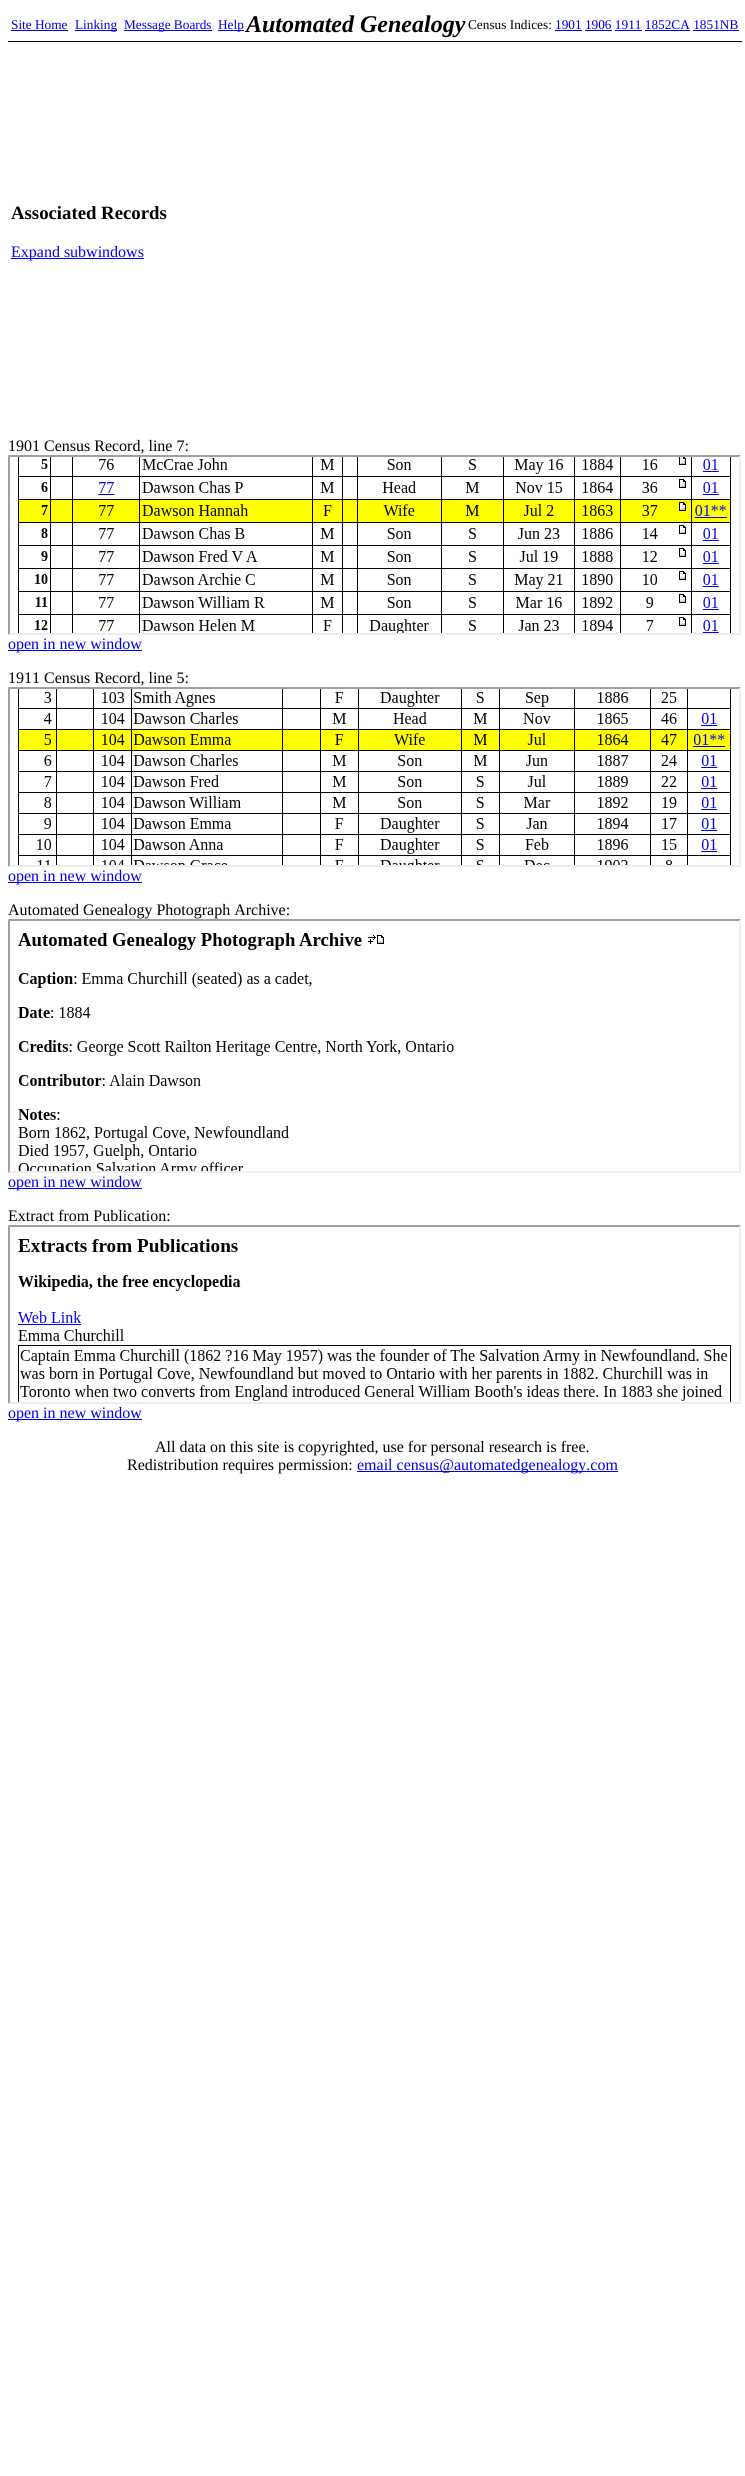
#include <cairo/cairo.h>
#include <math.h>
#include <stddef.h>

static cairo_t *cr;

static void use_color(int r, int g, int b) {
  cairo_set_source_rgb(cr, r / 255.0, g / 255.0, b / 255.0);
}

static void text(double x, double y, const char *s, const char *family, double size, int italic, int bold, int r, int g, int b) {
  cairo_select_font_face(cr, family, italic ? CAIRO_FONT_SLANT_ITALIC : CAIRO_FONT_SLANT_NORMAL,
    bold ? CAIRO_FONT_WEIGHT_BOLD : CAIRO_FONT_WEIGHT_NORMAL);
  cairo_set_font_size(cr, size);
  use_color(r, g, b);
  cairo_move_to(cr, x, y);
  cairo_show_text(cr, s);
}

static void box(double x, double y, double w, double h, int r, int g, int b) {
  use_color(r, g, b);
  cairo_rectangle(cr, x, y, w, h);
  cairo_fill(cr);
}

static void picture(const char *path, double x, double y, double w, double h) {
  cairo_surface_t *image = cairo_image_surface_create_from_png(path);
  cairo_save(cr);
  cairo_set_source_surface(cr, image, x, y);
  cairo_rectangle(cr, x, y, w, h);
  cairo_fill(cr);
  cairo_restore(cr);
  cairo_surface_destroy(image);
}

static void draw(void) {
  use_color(255, 255, 255);
  cairo_paint(cr);
  box(8, 41, 734, 1, 0, 0, 0);
  box(11, 30, 57, 1, 0, 0, 238);
  box(75, 30, 42, 1, 0, 0, 238);
  box(124, 30, 88, 1, 0, 0, 238);
  box(218, 30, 26, 1, 0, 0, 238);
  box(555, 30, 27, 1, 0, 0, 238);
  box(585, 30, 27, 1, 0, 0, 238);
  box(615, 30, 27, 1, 0, 0, 238);
  box(645, 30, 45, 1, 0, 0, 238);
  box(693, 30, 46, 1, 0, 0, 238);
  box(11, 258, 133, 1, 0, 0, 238);
  use_color(159, 159, 159);
  cairo_new_path(cr);
  cairo_move_to(cr, 8, 455);
  cairo_line_to(cr, 741, 455);
  cairo_line_to(cr, 739, 457);
  cairo_line_to(cr, 10, 457);
  cairo_close_path(cr);
  cairo_fill(cr);
  use_color(238, 238, 238);
  cairo_new_path(cr);
  cairo_move_to(cr, 741, 455);
  cairo_line_to(cr, 741, 635);
  cairo_line_to(cr, 739, 633);
  cairo_line_to(cr, 739, 457);
  cairo_close_path(cr);
  cairo_fill(cr);
  cairo_new_path(cr);
  cairo_move_to(cr, 741, 635);
  cairo_line_to(cr, 8, 635);
  cairo_line_to(cr, 10, 633);
  cairo_line_to(cr, 739, 633);
  cairo_close_path(cr);
  cairo_fill(cr);
  use_color(159, 159, 159);
  cairo_new_path(cr);
  cairo_move_to(cr, 8, 635);
  cairo_line_to(cr, 8, 455);
  cairo_line_to(cr, 10, 457);
  cairo_line_to(cr, 10, 633);
  cairo_close_path(cr);
  cairo_fill(cr);
  picture("img_01.png", 18, 457, 713, 176);
  box(8, 650, 134, 1, 0, 0, 238);
  use_color(159, 159, 159);
  cairo_new_path(cr);
  cairo_move_to(cr, 8, 687);
  cairo_line_to(cr, 741, 687);
  cairo_line_to(cr, 739, 689);
  cairo_line_to(cr, 10, 689);
  cairo_close_path(cr);
  cairo_fill(cr);
  use_color(238, 238, 238);
  cairo_new_path(cr);
  cairo_move_to(cr, 741, 687);
  cairo_line_to(cr, 741, 867);
  cairo_line_to(cr, 739, 865);
  cairo_line_to(cr, 739, 689);
  cairo_close_path(cr);
  cairo_fill(cr);
  cairo_new_path(cr);
  cairo_move_to(cr, 741, 867);
  cairo_line_to(cr, 8, 867);
  cairo_line_to(cr, 10, 865);
  cairo_line_to(cr, 739, 865);
  cairo_close_path(cr);
  cairo_fill(cr);
  use_color(159, 159, 159);
  cairo_new_path(cr);
  cairo_move_to(cr, 8, 867);
  cairo_line_to(cr, 8, 687);
  cairo_line_to(cr, 10, 689);
  cairo_line_to(cr, 10, 865);
  cairo_close_path(cr);
  cairo_fill(cr);
  picture("img_02.png", 18, 689, 713, 176);
  box(8, 882, 134, 1, 0, 0, 238);
  use_color(159, 159, 159);
  cairo_new_path(cr);
  cairo_move_to(cr, 8, 919);
  cairo_line_to(cr, 741, 919);
  cairo_line_to(cr, 739, 921);
  cairo_line_to(cr, 10, 921);
  cairo_close_path(cr);
  cairo_fill(cr);
  use_color(238, 238, 238);
  cairo_new_path(cr);
  cairo_move_to(cr, 741, 919);
  cairo_line_to(cr, 741, 1173);
  cairo_line_to(cr, 739, 1171);
  cairo_line_to(cr, 739, 921);
  cairo_close_path(cr);
  cairo_fill(cr);
  cairo_new_path(cr);
  cairo_move_to(cr, 741, 1173);
  cairo_line_to(cr, 8, 1173);
  cairo_line_to(cr, 10, 1171);
  cairo_line_to(cr, 739, 1171);
  cairo_close_path(cr);
  cairo_fill(cr);
  use_color(159, 159, 159);
  cairo_new_path(cr);
  cairo_move_to(cr, 8, 1173);
  cairo_line_to(cr, 8, 919);
  cairo_line_to(cr, 10, 921);
  cairo_line_to(cr, 10, 1171);
  cairo_close_path(cr);
  cairo_fill(cr);
  picture("img_03.png", 18, 933, 436, 238);
  box(8, 1188, 134, 1, 0, 0, 238);
  use_color(159, 159, 159);
  cairo_new_path(cr);
  cairo_move_to(cr, 8, 1225);
  cairo_line_to(cr, 741, 1225);
  cairo_line_to(cr, 739, 1227);
  cairo_line_to(cr, 10, 1227);
  cairo_close_path(cr);
  cairo_fill(cr);
  use_color(238, 238, 238);
  cairo_new_path(cr);
  cairo_move_to(cr, 741, 1225);
  cairo_line_to(cr, 741, 1404);
  cairo_line_to(cr, 739, 1402);
  cairo_line_to(cr, 739, 1227);
  cairo_close_path(cr);
  cairo_fill(cr);
  cairo_new_path(cr);
  cairo_move_to(cr, 741, 1404);
  cairo_line_to(cr, 8, 1404);
  cairo_line_to(cr, 10, 1402);
  cairo_line_to(cr, 739, 1402);
  cairo_close_path(cr);
  cairo_fill(cr);
  use_color(159, 159, 159);
  cairo_new_path(cr);
  cairo_move_to(cr, 8, 1404);
  cairo_line_to(cr, 8, 1225);
  cairo_line_to(cr, 10, 1227);
  cairo_line_to(cr, 10, 1402);
  cairo_close_path(cr);
  cairo_fill(cr);
  picture("img_04.png", 18, 1239, 713, 163);
  box(8, 1419, 134, 1, 0, 0, 238);
  box(357, 1471, 261, 1, 0, 0, 238);
  text(11, 29, "Site Home", "Liberation Serif", 13.3, 0, 0, 0, 0, 238);
  text(75, 29, "Linking", "Liberation Serif", 13.3, 0, 0, 0, 0, 238);
  text(124, 29, "Message Boards", "Liberation Serif", 13.3, 0, 0, 0, 0, 238);
  text(218, 29, "Help", "Liberation Serif", 13.3, 0, 0, 0, 0, 238);
  text(246, 32, "Automated Genealogy", "Liberation Serif", 24, 1, 1, 0, 0, 0);
  text(468, 29, "Census Indices:", "Liberation Serif", 13.3, 0, 0, 0, 0, 0);
  text(555, 29, "1901 1906 1911 1852CA 1851NB", "Liberation Serif", 13.3, 0, 0, 0, 0, 238);
  text(11, 219, "Associated Records", "Liberation Serif", 18.75, 0, 1, 0, 0, 0);
  text(11, 257, "Expand subwindows", "Liberation Serif", 16, 0, 0, 0, 0, 238);
  text(8, 451, "1901 Census Record, line 7:", "Liberation Serif", 16, 0, 0, 0, 0, 0);
  text(8, 649, "open in new window", "Liberation Serif", 16, 0, 0, 0, 0, 238);
  text(8, 683, "1911 Census Record, line 5:", "Liberation Serif", 16, 0, 0, 0, 0, 0);
  text(8, 881, "open in new window", "Liberation Serif", 16, 0, 0, 0, 0, 238);
  text(8, 915, "Automated Genealogy Photograph Archive:", "Liberation Serif", 16, 0, 0, 0, 0, 0);
  text(8, 1187, "open in new window", "Liberation Serif", 16, 0, 0, 0, 0, 238);
  text(8, 1221, "Extract from Publication:", "Liberation Serif", 16, 0, 0, 0, 0, 0);
  text(8, 1418, "open in new window", "Liberation Serif", 16, 0, 0, 0, 0, 238);
  text(155, 1452, "All data on this site is copyrighted, use for personal research is free.", "Liberation Serif", 16, 0, 0, 0, 0, 0);
  text(127, 1470, "Redistribution requires permission:", "Liberation Serif", 16, 0, 0, 0, 0, 0);
  text(357, 1470, "email census@automatedgenealogy.com", "Liberation Serif", 16, 0, 0, 0, 0, 238);
}

int main(void) {
  cairo_surface_t *surface = cairo_image_surface_create(CAIRO_FORMAT_RGB24, 745, 2476);
  cr = cairo_create(surface);
  cairo_font_options_t *options = cairo_font_options_create();
  cairo_font_options_set_hint_metrics(options, CAIRO_HINT_METRICS_OFF);
  cairo_font_options_set_hint_style(options, CAIRO_HINT_STYLE_NONE);
  cairo_set_font_options(cr, options);
  cairo_set_miter_limit(cr, 4);
  draw();
  cairo_surface_write_to_png(surface, "out.png");
  cairo_font_options_destroy(options);
  cairo_destroy(cr);
  cairo_surface_destroy(surface);
  return 0;
}
